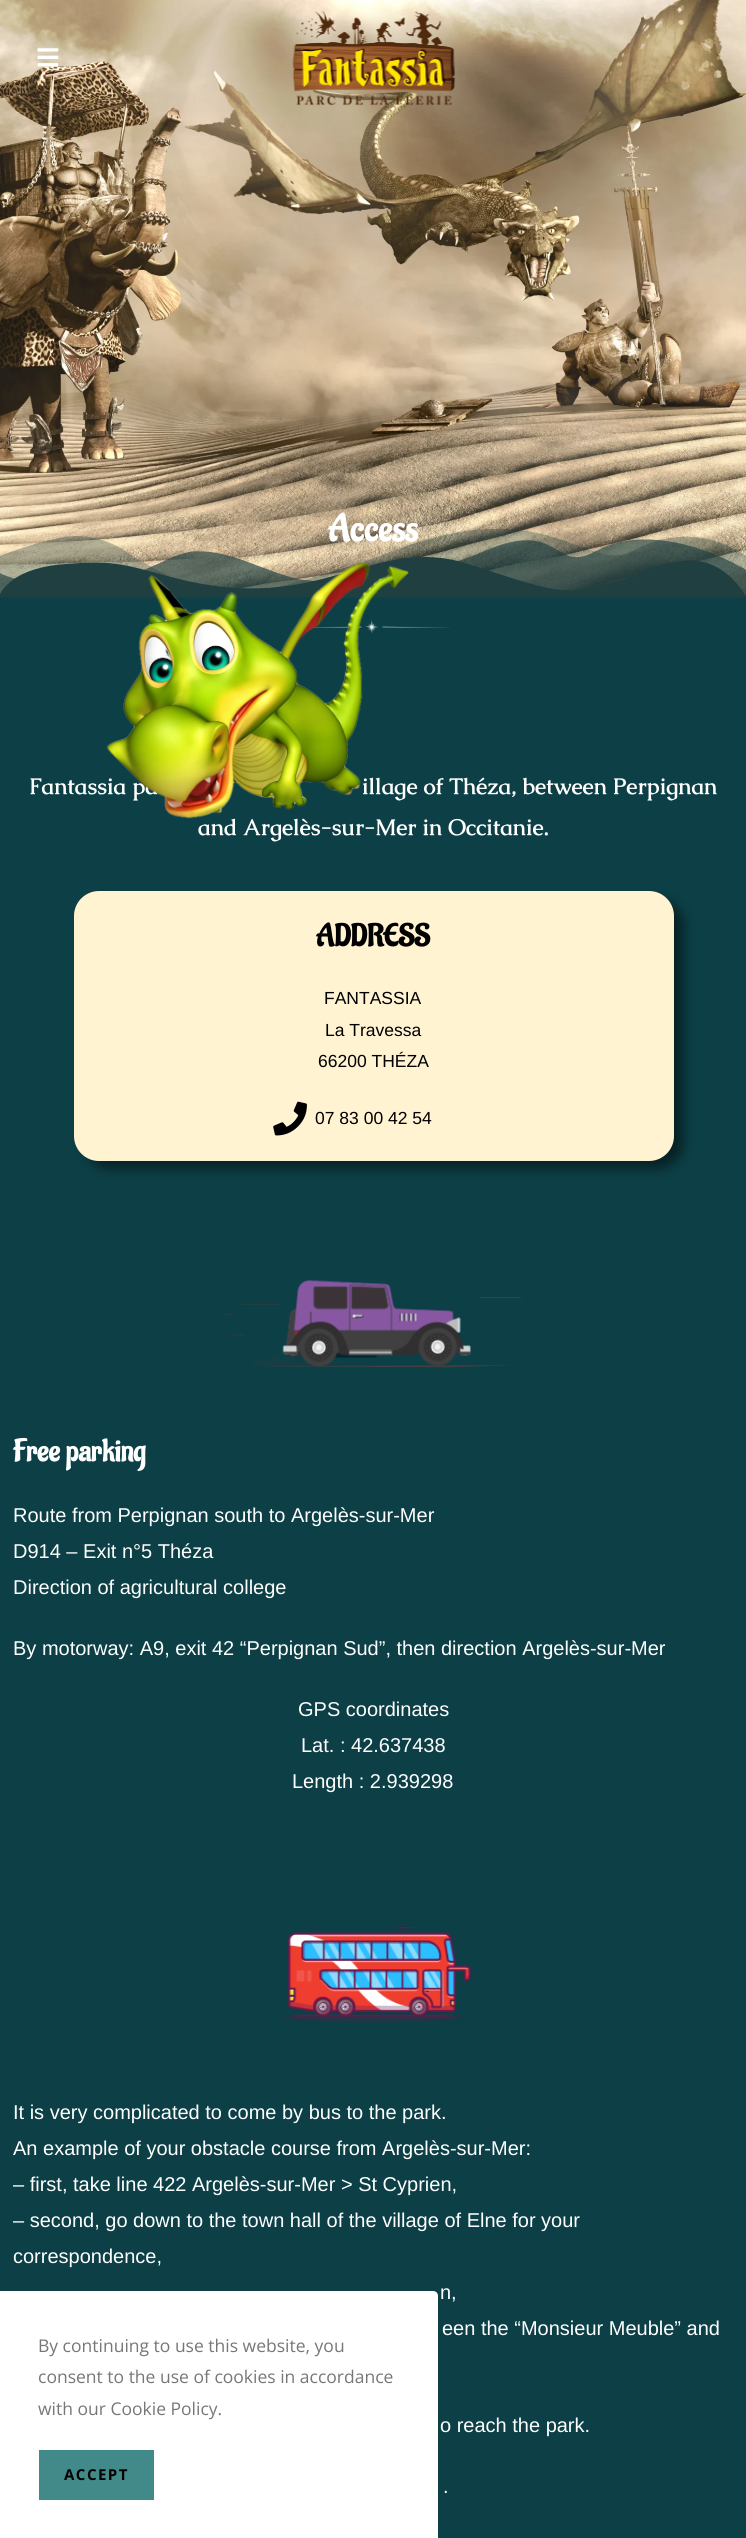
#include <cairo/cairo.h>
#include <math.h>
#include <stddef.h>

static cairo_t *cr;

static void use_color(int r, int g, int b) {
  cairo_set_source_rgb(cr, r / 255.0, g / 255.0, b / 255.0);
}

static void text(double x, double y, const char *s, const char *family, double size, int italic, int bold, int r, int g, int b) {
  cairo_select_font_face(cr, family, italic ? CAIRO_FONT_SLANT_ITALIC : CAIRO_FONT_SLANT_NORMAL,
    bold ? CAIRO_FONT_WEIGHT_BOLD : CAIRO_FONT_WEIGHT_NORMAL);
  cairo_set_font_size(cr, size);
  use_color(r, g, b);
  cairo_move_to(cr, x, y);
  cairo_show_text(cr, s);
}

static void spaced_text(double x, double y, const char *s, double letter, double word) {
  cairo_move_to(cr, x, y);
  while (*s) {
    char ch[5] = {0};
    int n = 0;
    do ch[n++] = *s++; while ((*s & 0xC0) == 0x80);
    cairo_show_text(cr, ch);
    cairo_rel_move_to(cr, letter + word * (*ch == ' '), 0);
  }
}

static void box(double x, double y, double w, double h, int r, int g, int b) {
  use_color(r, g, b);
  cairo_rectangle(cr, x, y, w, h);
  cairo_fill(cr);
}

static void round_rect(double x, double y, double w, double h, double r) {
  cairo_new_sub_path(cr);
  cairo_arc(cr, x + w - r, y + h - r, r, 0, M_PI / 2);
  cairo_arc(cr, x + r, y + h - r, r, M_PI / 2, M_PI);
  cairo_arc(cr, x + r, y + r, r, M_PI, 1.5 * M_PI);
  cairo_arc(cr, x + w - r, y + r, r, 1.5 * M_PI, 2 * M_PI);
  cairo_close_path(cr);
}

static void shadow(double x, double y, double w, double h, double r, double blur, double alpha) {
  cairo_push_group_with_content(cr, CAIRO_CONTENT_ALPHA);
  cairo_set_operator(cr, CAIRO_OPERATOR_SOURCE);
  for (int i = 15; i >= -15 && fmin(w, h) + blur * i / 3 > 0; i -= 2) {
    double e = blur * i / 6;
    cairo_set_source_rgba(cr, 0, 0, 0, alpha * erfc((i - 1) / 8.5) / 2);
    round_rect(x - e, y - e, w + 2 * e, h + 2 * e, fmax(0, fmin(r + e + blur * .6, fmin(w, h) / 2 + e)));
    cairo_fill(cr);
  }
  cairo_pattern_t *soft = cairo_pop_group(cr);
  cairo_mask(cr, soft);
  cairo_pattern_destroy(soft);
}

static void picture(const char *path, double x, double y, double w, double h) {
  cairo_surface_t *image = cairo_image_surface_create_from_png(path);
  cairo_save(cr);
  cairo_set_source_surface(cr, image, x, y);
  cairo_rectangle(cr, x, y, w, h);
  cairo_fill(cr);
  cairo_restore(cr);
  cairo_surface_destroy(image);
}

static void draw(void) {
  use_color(12, 63, 70);
  cairo_paint(cr);
  picture("img_03.png", 0, 0, 746, 597);
  picture("img_01.png", 37, 48, 22, 19);
  picture("img_02.png", 292, 11, 164, 95);
  picture("img_04.png", 0, 529, 746, 69);
  picture("img_06.png", 293, 620, 157, 14);
  use_color(0, 0, 0);
  shadow(85, 900, 598, 268, 24, 6, 0.5);
  use_color(255, 243, 209);
  round_rect(74, 891, 600, 270, 25);
  cairo_fill(cr);
  picture("img_07.png", 273, 1101, 34, 35);
  picture("img_08.png", 225, 1280, 296, 88);
  picture("img_09.png", 283, 1926, 189, 97);
  use_color(255, 255, 255);
  cairo_new_path(cr);
  cairo_move_to(cr, 0, 2291);
  cairo_line_to(cr, 433, 2291);
  cairo_curve_to(cr, 436, 2291, 438, 2293, 438, 2296);
  cairo_line_to(cr, 438, 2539);
  cairo_line_to(cr, 0, 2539);
  cairo_close_path(cr);
  cairo_fill(cr);
  box(39, 2450, 115, 50, 66, 137, 137);
  text(328, 541, "Access", "Aladin", 37.5, 0, 1, 255, 255, 255);
  text(29, 794, "Fantassia pa", "Caudex", 22.5, 0, 1, 255, 255, 255);
  text(362, 794, "illage of Théza, between Perpignan", "Caudex", 22.5, 0, 1, 255, 255, 255);
  text(198, 835, "and Argelès-sur-Mer in Occitanie.", "Caudex", 22.5, 0, 1, 255, 255, 255);
  picture("img_05.png", 106, 562, 303, 257);
  text(316, 946, "ADDRESS", "Aladin", 31.25, 0, 1, 0, 0, 0);
  text(324, 1004, "FANTASSIA", "Liberation Sans", 17.5, 0, 0, 0, 0, 0);
  text(325, 1036, "La Travessa", "Liberation Sans", 17.5, 0, 0, 0, 0, 0);
  text(318, 1067, "66200 THÉZA", "Liberation Sans", 17.5, 0, 0, 0, 0, 0);
  text(315, 1124, "07 83 00 42 54", "Liberation Sans", 17.5, 0, 0, 0, 0, 0);
  text(13, 1461, "Free parking", "Aladin", 31.25, 0, 1, 255, 255, 255);
  text(13, 1522, "Route from Perpignan south to Argelès-sur-Mer", "Liberation Sans", 20, 0, 0, 255, 255, 255);
  text(13, 1558, "D914 – Exit n°5 Théza", "Liberation Sans", 20, 0, 0, 255, 255, 255);
  text(13, 1594, "Direction of agricultural college", "Liberation Sans", 20, 0, 0, 255, 255, 255);
  text(13, 1655, "By motorway: A9, exit 42 “Perpignan Sud”, then direction Argelès-sur-Mer", "Liberation Sans", 20, 0, 0, 255, 255, 255);
  text(298, 1716, "GPS coordinates", "Liberation Sans", 20, 0, 0, 255, 255, 255);
  text(301, 1752, "Lat. : 42.637438", "Liberation Sans", 20, 0, 0, 255, 255, 255);
  text(292, 1788, "Length : 2.939298", "Liberation Sans", 20, 0, 0, 255, 255, 255);
  text(13, 2119, "It is very complicated to come by bus to the park.", "Liberation Sans", 20, 0, 0, 255, 255, 255);
  text(13, 2155, "An example of your obstacle course from Argelès-sur-Mer:", "Liberation Sans", 20, 0, 0, 255, 255, 255);
  text(13, 2191, "– first, take line 422 Argelès-sur-Mer > St Cyprien,", "Liberation Sans", 20, 0, 0, 255, 255, 255);
  text(13, 2227, "– second, go down to the town hall of the village of Elne for your", "Liberation Sans", 20, 0, 0, 255, 255, 255);
  text(13, 2263, "correspondence,", "Liberation Sans", 20, 0, 0, 255, 255, 255);
  text(440, 2299, "n,", "Liberation Sans", 20, 0, 0, 255, 255, 255);
  text(442, 2335, "een the “Monsieur Meuble” and", "Liberation Sans", 20, 0, 0, 255, 255, 255);
  text(440, 2432, "o reach the park.", "Liberation Sans", 20, 0, 0, 255, 255, 255);
  text(443, 2493, ".", "Liberation Sans", 20, 0, 0, 255, 255, 255);
  text(38, 2352, "By continuing to use this website, you", "Open Sans", 17.5, 0, 0, 119, 119, 119);
  text(38, 2383, "consent to the use of cookies in accordance", "Open Sans", 17.5, 0, 0, 119, 119, 119);
  text(38, 2415, "with our Cookie Policy.", "Open Sans", 17.5, 0, 0, 119, 119, 119);
  cairo_select_font_face(cr, "Open Sans", CAIRO_FONT_SLANT_NORMAL, CAIRO_FONT_WEIGHT_BOLD);
  cairo_set_font_size(cr, 15);
  use_color(0, 0, 0);
  spaced_text(64, 2480, "ACCEPT", 1.5, 0);
}

int main(void) {
  cairo_surface_t *surface = cairo_image_surface_create(CAIRO_FORMAT_RGB24, 746, 2538);
  cr = cairo_create(surface);
  cairo_font_options_t *options = cairo_font_options_create();
  cairo_font_options_set_hint_metrics(options, CAIRO_HINT_METRICS_OFF);
  cairo_font_options_set_hint_style(options, CAIRO_HINT_STYLE_NONE);
  cairo_set_font_options(cr, options);
  cairo_set_miter_limit(cr, 4);
  draw();
  cairo_surface_write_to_png(surface, "out.png");
  cairo_font_options_destroy(options);
  cairo_destroy(cr);
  cairo_surface_destroy(surface);
  return 0;
}
